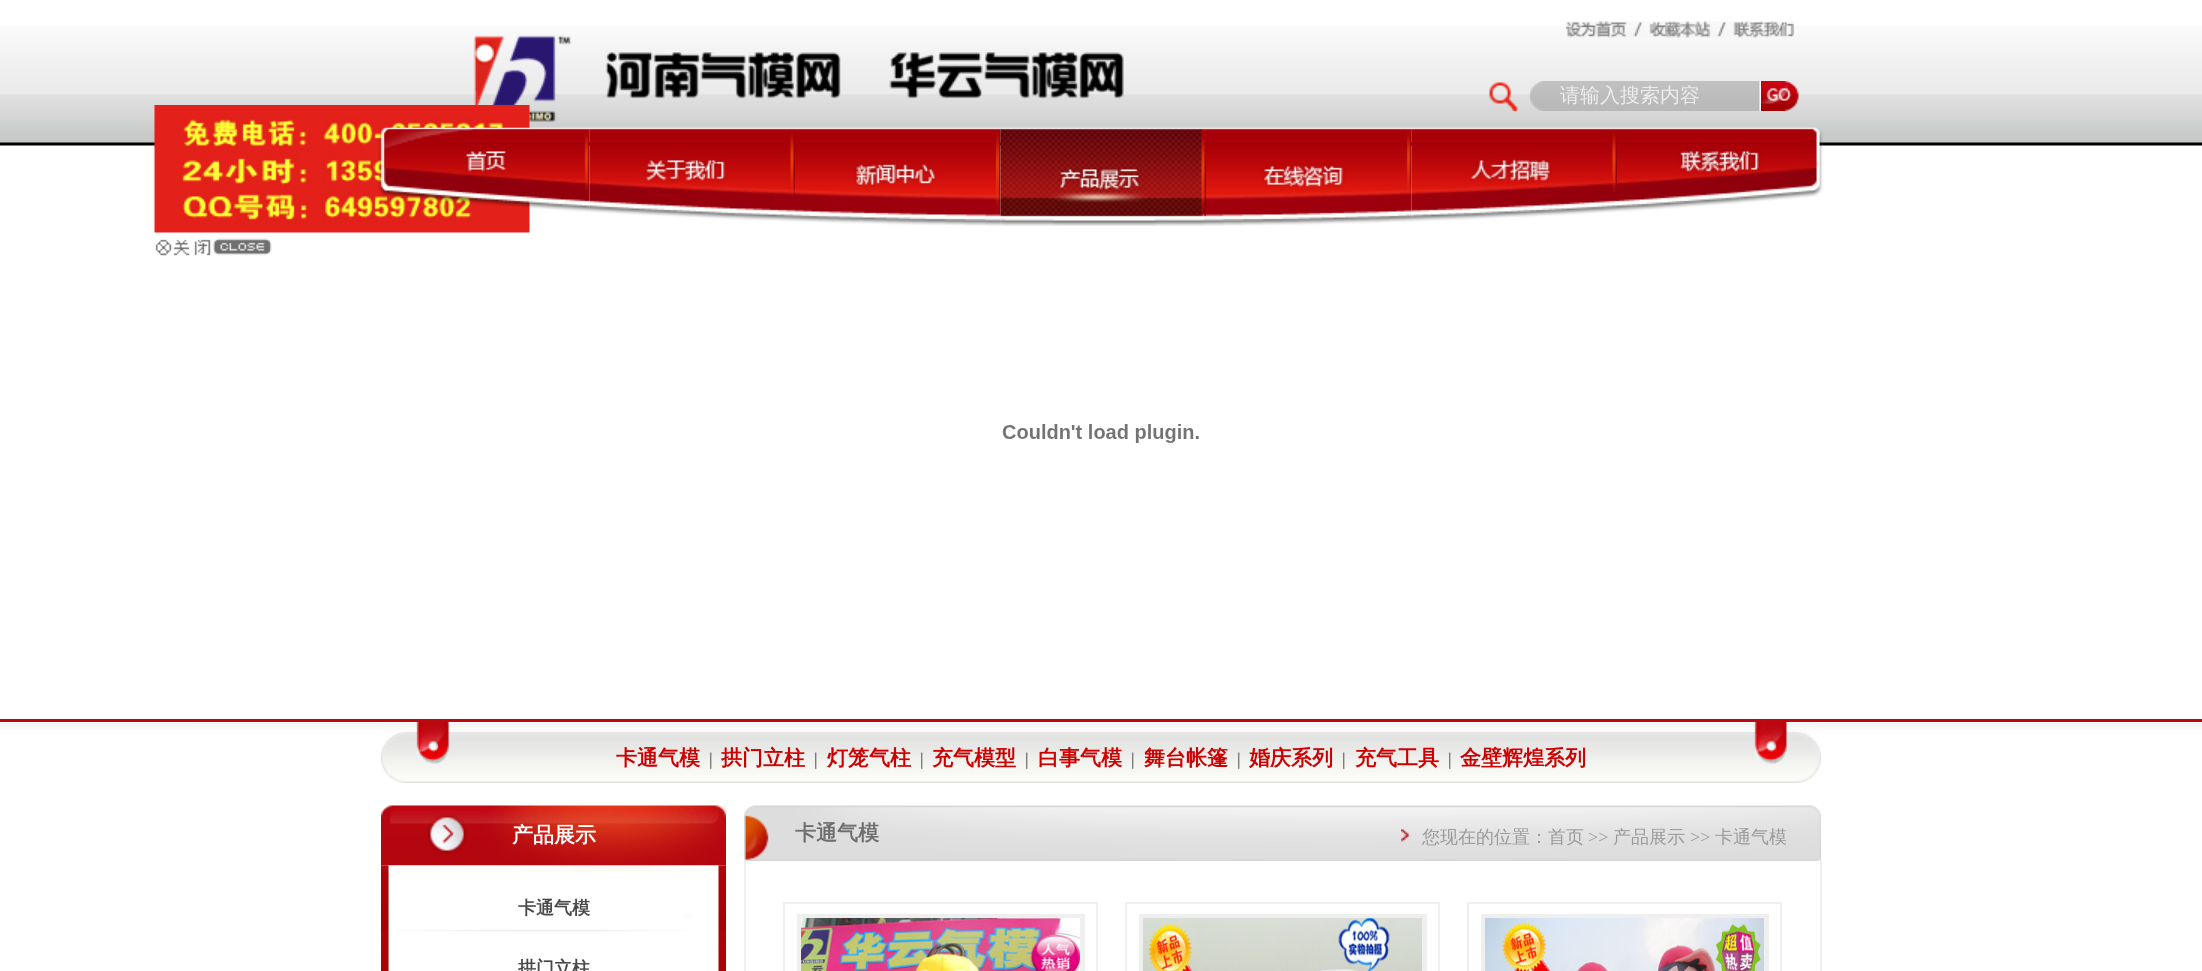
#include <cairo/cairo.h>
#include <math.h>
#include <stddef.h>

static cairo_t *cr;

static void use_color(int r, int g, int b) {
  cairo_set_source_rgb(cr, r / 255.0, g / 255.0, b / 255.0);
}

static void text(double x, double y, const char *s, const char *family, double size, int italic, int bold, int r, int g, int b) {
  cairo_select_font_face(cr, family, italic ? CAIRO_FONT_SLANT_ITALIC : CAIRO_FONT_SLANT_NORMAL,
    bold ? CAIRO_FONT_WEIGHT_BOLD : CAIRO_FONT_WEIGHT_NORMAL);
  cairo_set_font_size(cr, size);
  use_color(r, g, b);
  cairo_move_to(cr, x, y);
  cairo_show_text(cr, s);
}

static void box(double x, double y, double w, double h, int r, int g, int b) {
  use_color(r, g, b);
  cairo_rectangle(cr, x, y, w, h);
  cairo_fill(cr);
}

static void picture(const char *path, double x, double y, double w, double h) {
  cairo_surface_t *image = cairo_image_surface_create_from_png(path);
  cairo_save(cr);
  cairo_set_source_surface(cr, image, x, y);
  cairo_rectangle(cr, x, y, w, h);
  cairo_fill(cr);
  cairo_restore(cr);
  cairo_surface_destroy(image);
}

static void draw(void) {
  use_color(255, 255, 255);
  cairo_paint(cr);
  box(0, 719, 2202, 3, 191, 7, 15);
  picture("img_01.png", 0, 26, 2202, 120);
  picture("img_02.png", 473, 35, 651, 87);
  picture("img_03.png", 1566, 21, 228, 17);
  picture("img_04.png", 1489, 82, 30, 29);
  picture("img_05.png", 1530, 81, 231, 30);
  picture("img_06.png", 1761, 81, 38, 30);
  picture("img_15.png", 154, 105, 376, 128);
  picture("img_07.png", 378, 127, 212, 85);
  picture("img_08.png", 589, 127, 206, 95);
  picture("img_09.png", 795, 127, 206, 99);
  picture("img_10.png", 1000, 127, 206, 99);
  picture("img_11.png", 1206, 127, 206, 99);
  picture("img_12.png", 1411, 127, 206, 95);
  picture("img_13.png", 1617, 127, 206, 85);
  picture("img_14.png", 1002, 424, 197, 19);
  picture("img_16.png", 155, 238, 117, 18);
  picture("img_17.png", 0, 723, 2202, 7);
  picture("img_18.png", 381, 722, 1440, 61);
  picture("img_19.png", 381, 805, 345, 61);
  picture("img_20.png", 381, 865, 345, 67);
  picture("img_21.png", 381, 871, 345, 61);
  picture("img_22.png", 381, 931, 345, 40);
  picture("img_23.png", 744, 805, 1077, 56);
  picture("img_24.png", 1401, 829, 9, 13);
  box(1820, 861, 2, 110, 239, 239, 239);
  box(744, 861, 2, 110, 239, 239, 239);
  cairo_rectangle(cr, 784, 903, 313, 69);
  cairo_stroke(cr);
  cairo_rectangle(cr, 799.5, 916.5, 283, 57);
  use_color(240, 239, 239);
  cairo_set_line_width(cr, 5);
  cairo_stroke(cr);
  picture("img_25.png", 801, 918, 279, 53);
  cairo_rectangle(cr, 1126, 903, 313, 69);
  use_color(239, 239, 239);
  cairo_set_line_width(cr, 2);
  cairo_stroke(cr);
  cairo_rectangle(cr, 1141.5, 916.5, 283, 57);
  use_color(240, 239, 239);
  cairo_set_line_width(cr, 5);
  cairo_stroke(cr);
  picture("img_26.png", 1143, 918, 279, 53);
  cairo_rectangle(cr, 1468, 903, 313, 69);
  use_color(239, 239, 239);
  cairo_set_line_width(cr, 2);
  cairo_stroke(cr);
  cairo_rectangle(cr, 1483.5, 916.5, 283, 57);
  use_color(240, 239, 239);
  cairo_set_line_width(cr, 5);
  cairo_stroke(cr);
  picture("img_27.png", 1485, 918, 279, 53);
  text(1560, 102, "请输入搜索内容", "WenQuanYi Zen Hei Medium", 20, 0, 0, 239, 238, 238);
  text(616, 765, "卡通气模", "WenQuanYi Zen Hei", 21, 0, 1, 204, 0, 0);
  text(709, 765, "|", "Liberation Serif", 18, 0, 0, 60, 60, 60);
  text(721, 765, "拱门立柱", "WenQuanYi Zen Hei", 21, 0, 1, 204, 0, 0);
  text(814, 765, "|", "Liberation Serif", 18, 0, 0, 60, 60, 60);
  text(827, 765, "灯笼气柱", "WenQuanYi Zen Hei", 21, 0, 1, 204, 0, 0);
  text(920, 765, "|", "Liberation Serif", 18, 0, 0, 60, 60, 60);
  text(932, 765, "充气模型", "WenQuanYi Zen Hei", 21, 0, 1, 204, 0, 0);
  text(1025, 765, "|", "Liberation Serif", 18, 0, 0, 60, 60, 60);
  text(1038, 765, "白事气模", "WenQuanYi Zen Hei", 21, 0, 1, 204, 0, 0);
  text(1131, 765, "|", "Liberation Serif", 18, 0, 0, 60, 60, 60);
  text(1144, 765, "舞台帐篷", "WenQuanYi Zen Hei", 21, 0, 1, 204, 0, 0);
  text(1237, 765, "|", "Liberation Serif", 18, 0, 0, 60, 60, 60);
  text(1249, 765, "婚庆系列", "WenQuanYi Zen Hei", 21, 0, 1, 204, 0, 0);
  text(1342, 765, "|", "Liberation Serif", 18, 0, 0, 60, 60, 60);
  text(1355, 765, "充气工具", "WenQuanYi Zen Hei", 21, 0, 1, 204, 0, 0);
  text(1448, 765, "|", "Liberation Serif", 18, 0, 0, 60, 60, 60);
  text(1460, 765, "金壁辉煌系列", "WenQuanYi Zen Hei", 21, 0, 1, 204, 0, 0);
  text(512, 842, "产品展示", "WenQuanYi Zen Hei", 21, 0, 1, 255, 255, 255);
  text(518, 914, "卡通气模", "WenQuanYi Zen Hei", 18, 0, 1, 72, 72, 72);
  text(518, 974, "拱门立柱", "WenQuanYi Zen Hei", 18, 0, 1, 72, 72, 72);
  text(795, 840, "卡通气模", "WenQuanYi Zen Hei", 21, 0, 1, 110, 110, 110);
  text(1422, 843, "您现在的位置：首页", "WenQuanYi Zen Hei Medium", 18, 0, 0, 154, 153, 153);
  text(1588, 843, ">>", "Liberation Serif", 18, 0, 0, 154, 153, 153);
  text(1613, 843, "产品展示", "WenQuanYi Zen Hei Medium", 18, 0, 0, 154, 153, 153);
  text(1690, 843, ">>", "Liberation Serif", 18, 0, 0, 154, 153, 153);
  text(1715, 843, "卡通气模", "WenQuanYi Zen Hei Medium", 18, 0, 0, 154, 153, 153);
}

int main(void) {
  cairo_surface_t *surface = cairo_image_surface_create(CAIRO_FORMAT_RGB24, 2202, 971);
  cr = cairo_create(surface);
  cairo_font_options_t *options = cairo_font_options_create();
  cairo_font_options_set_hint_metrics(options, CAIRO_HINT_METRICS_OFF);
  cairo_font_options_set_hint_style(options, CAIRO_HINT_STYLE_NONE);
  cairo_set_font_options(cr, options);
  cairo_set_miter_limit(cr, 4);
  draw();
  cairo_surface_write_to_png(surface, "out.png");
  cairo_font_options_destroy(options);
  cairo_destroy(cr);
  cairo_surface_destroy(surface);
  return 0;
}
